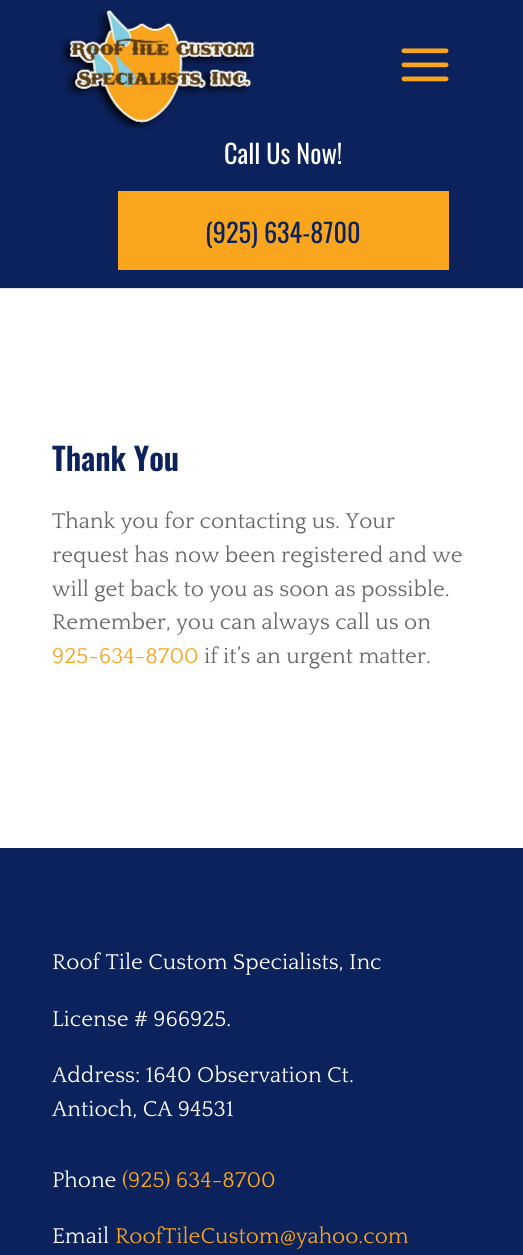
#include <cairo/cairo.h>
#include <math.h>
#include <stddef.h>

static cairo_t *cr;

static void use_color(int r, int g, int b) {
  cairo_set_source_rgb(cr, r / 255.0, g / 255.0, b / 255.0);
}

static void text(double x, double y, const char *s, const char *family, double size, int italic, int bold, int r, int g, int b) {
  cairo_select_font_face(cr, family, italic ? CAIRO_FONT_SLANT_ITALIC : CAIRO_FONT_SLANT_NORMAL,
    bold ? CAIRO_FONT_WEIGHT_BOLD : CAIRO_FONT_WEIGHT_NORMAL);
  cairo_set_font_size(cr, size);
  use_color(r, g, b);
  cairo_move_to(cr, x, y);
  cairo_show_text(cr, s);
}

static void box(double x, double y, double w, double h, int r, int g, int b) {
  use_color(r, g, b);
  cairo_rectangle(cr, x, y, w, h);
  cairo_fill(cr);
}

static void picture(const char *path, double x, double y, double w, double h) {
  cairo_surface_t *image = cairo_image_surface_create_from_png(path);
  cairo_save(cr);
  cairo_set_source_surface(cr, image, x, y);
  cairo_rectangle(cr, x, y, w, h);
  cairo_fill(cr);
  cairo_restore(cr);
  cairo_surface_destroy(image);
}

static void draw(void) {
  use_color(255, 255, 255);
  cairo_paint(cr);
  use_color(230, 230, 230);
  cairo_new_path(cr);
  cairo_move_to(cr, 0, 288);
  cairo_line_to(cr, 0, 289);
  cairo_line_to(cr, 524, 289);
  cairo_line_to(cr, 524, 1);
  cairo_line_to(cr, 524, 288);
  cairo_close_path(cr);
  cairo_fill(cr);
  box(0, 0, 523, 288, 12, 34, 92);
  picture("img_01.png", 59, 5, 197, 125);
  picture("img_02.png", 401, 48, 48, 34);
  box(118, 191, 331, 79, 249, 165, 30);
  box(0, 848, 523, 407, 12, 34, 92);
  text(224, 164, "Call Us Now!", "Oswald", 26.25, 0, 0, 255, 255, 255);
  text(205, 243, "(925) 634-8700", "Oswald", 26.25, 0, 0, 12, 34, 92);
  text(52, 471, "Thank You", "Oswald SemiBold", 31.25, 0, 0, 12, 34, 92);
  text(52, 528, "Thank you for contacting us. Your", "Quattrocento", 22.5, 0, 0, 102, 102, 102);
  text(52, 562, "request has now been registered and we", "Quattrocento", 22.5, 0, 0, 102, 102, 102);
  text(52, 596, "will get back to you as soon as possible.", "Quattrocento", 22.5, 0, 0, 102, 102, 102);
  text(52, 629, "Remember, you can always call us on", "Quattrocento", 22.5, 0, 0, 102, 102, 102);
  text(52, 663, "925-634-8700", "Quattrocento", 22.5, 0, 0, 249, 165, 30);
  text(204, 663, "if it’s an urgent matter.", "Quattrocento", 22.5, 0, 0, 102, 102, 102);
  text(52, 969, "Roof Tile Custom Specialists, Inc", "Quattrocento", 22.5, 0, 0, 255, 255, 255);
  text(52, 1026, "License # 966925.", "Quattrocento", 22.5, 0, 0, 255, 255, 255);
  text(52, 1082, "Address: 1640 Observation Ct.", "Quattrocento", 22.5, 0, 0, 255, 255, 255);
  text(52, 1116, "Antioch, CA 94531", "Quattrocento", 22.5, 0, 0, 255, 255, 255);
  text(52, 1187, "Phone", "Quattrocento", 22.5, 0, 0, 255, 255, 255);
  text(122, 1187, "(925) 634-8700", "Quattrocento", 22.5, 0, 0, 249, 165, 30);
  text(52, 1243, "Email", "Quattrocento", 22.5, 0, 0, 255, 255, 255);
  text(115, 1243, "RoofTileCustom@yahoo.com", "Quattrocento", 22.5, 0, 0, 249, 165, 30);
}

int main(void) {
  cairo_surface_t *surface = cairo_image_surface_create(CAIRO_FORMAT_RGB24, 523, 1255);
  cr = cairo_create(surface);
  cairo_font_options_t *options = cairo_font_options_create();
  cairo_font_options_set_hint_metrics(options, CAIRO_HINT_METRICS_OFF);
  cairo_font_options_set_hint_style(options, CAIRO_HINT_STYLE_NONE);
  cairo_set_font_options(cr, options);
  cairo_set_miter_limit(cr, 4);
  draw();
  cairo_surface_write_to_png(surface, "out.png");
  cairo_font_options_destroy(options);
  cairo_destroy(cr);
  cairo_surface_destroy(surface);
  return 0;
}
